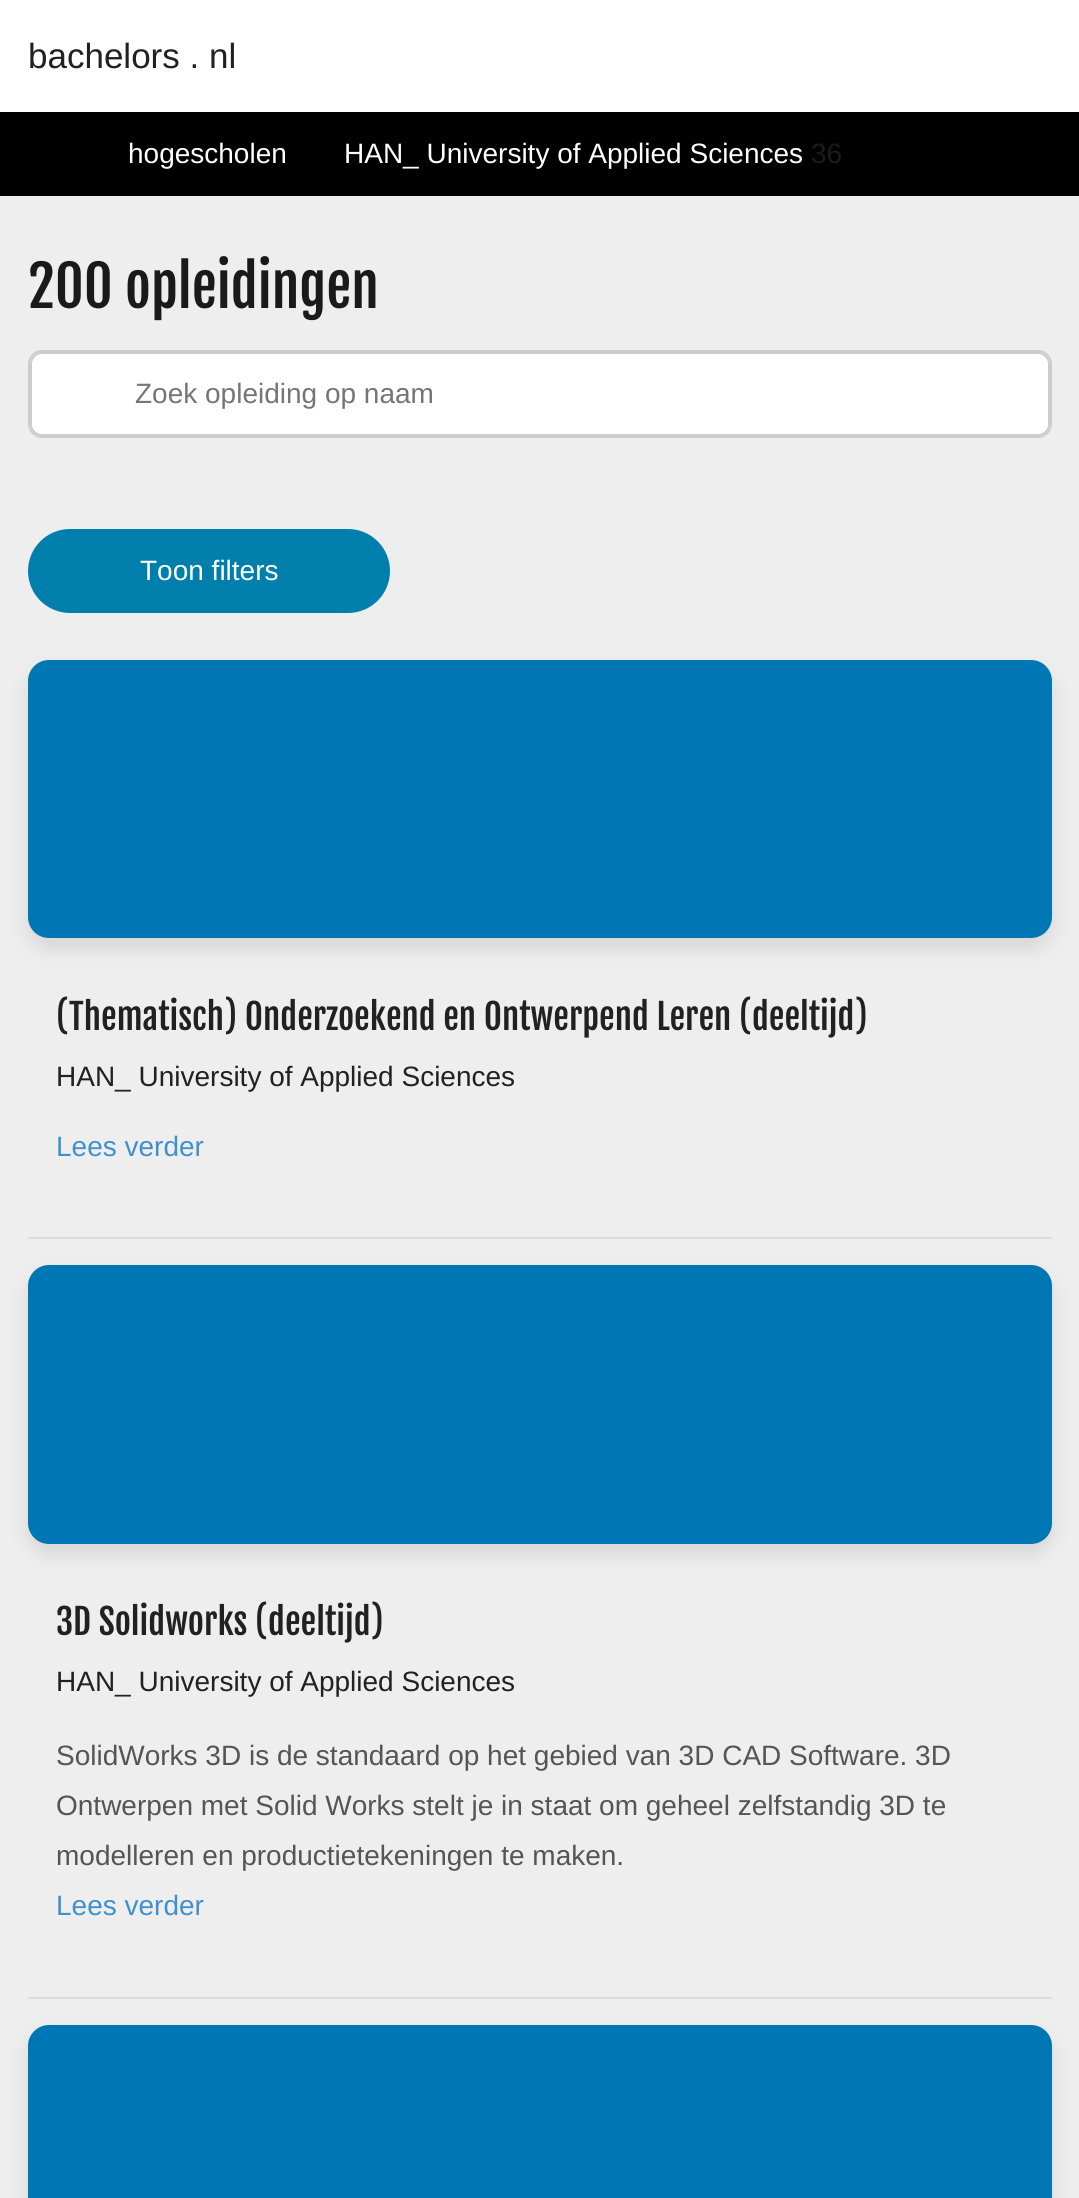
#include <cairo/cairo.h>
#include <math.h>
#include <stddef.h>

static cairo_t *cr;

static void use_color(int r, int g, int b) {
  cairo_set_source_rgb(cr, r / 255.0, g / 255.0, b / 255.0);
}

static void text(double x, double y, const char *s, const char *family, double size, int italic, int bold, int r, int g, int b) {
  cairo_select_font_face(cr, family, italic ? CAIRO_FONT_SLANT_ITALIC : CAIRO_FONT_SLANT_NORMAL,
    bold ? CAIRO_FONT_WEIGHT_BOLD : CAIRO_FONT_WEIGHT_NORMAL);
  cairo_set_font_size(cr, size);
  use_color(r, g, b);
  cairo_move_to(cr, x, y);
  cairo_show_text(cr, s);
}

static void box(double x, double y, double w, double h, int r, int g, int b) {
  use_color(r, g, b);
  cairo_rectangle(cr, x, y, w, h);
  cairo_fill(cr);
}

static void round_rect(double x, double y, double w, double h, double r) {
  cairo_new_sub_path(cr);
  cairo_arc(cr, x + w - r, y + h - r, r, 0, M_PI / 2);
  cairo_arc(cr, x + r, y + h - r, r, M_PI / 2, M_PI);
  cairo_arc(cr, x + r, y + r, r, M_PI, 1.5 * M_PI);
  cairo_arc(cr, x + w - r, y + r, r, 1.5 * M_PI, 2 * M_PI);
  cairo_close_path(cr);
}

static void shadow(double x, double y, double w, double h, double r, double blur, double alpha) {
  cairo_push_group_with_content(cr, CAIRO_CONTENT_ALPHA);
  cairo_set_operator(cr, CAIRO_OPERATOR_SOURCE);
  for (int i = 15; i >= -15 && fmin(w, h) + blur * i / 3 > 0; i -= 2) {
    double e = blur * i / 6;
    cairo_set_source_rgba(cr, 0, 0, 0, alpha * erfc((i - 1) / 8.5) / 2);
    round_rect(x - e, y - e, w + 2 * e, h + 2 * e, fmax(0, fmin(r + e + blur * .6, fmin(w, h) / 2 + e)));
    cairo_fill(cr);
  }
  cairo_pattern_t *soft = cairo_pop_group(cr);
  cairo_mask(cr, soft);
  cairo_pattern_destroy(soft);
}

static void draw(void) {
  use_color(238, 238, 238);
  cairo_paint(cr);
  box(0, 0, 1079, 112, 255, 255, 255);
  box(0, 112, 1079, 84, 0, 0, 0);
  use_color(255, 255, 255);
  round_rect(29, 351, 1022, 86, 13);
  cairo_fill_preserve(cr);
  use_color(204, 204, 204);
  cairo_stroke(cr);
  round_rect(31, 353, 1018, 82, 11);
  cairo_stroke(cr);
  use_color(0, 127, 173);
  round_rect(28, 529, 362, 84, 42);
  cairo_fill(cr);
  box(28, 1237, 1024, 2, 221, 221, 221);
  use_color(33, 33, 33);
  shadow(28, 670, 1024, 279, 21, 10.5, 0.12);
  use_color(0, 119, 181);
  round_rect(28, 660, 1024, 278, 21);
  cairo_fill(cr);
  box(28, 1997, 1024, 2, 221, 221, 221);
  use_color(33, 33, 33);
  shadow(28, 1276, 1024, 278, 21, 10.5, 0.12);
  use_color(0, 119, 181);
  round_rect(28, 1265, 1024, 279, 21);
  cairo_fill(cr);
  use_color(33, 33, 33);
  shadow(28, 2035, 1024, 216, 21, 10.5, 0.12);
  use_color(0, 119, 181);
  round_rect(28, 2025, 1024, 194, 21);
  cairo_fill(cr);
  text(28, 68, "bachelors . nl", "Liberation Sans", 35, 0, 0, 33, 33, 33);
  text(128, 163, "hogescholen", "Liberation Sans", 28, 0, 0, 255, 255, 255);
  text(344, 163, "HAN_ University of Applied Sciences", "Liberation Sans", 28, 0, 0, 255, 255, 255);
  text(811, 163, "36", "Liberation Sans", 28, 0, 0, 26, 26, 26);
  text(28, 308, "200 opleidingen", "Fjalla One", 56, 0, 0, 26, 26, 26);
  text(135, 403, "Zoek opleiding op naam", "Liberation Sans", 28, 0, 0, 117, 117, 117);
  text(140, 580, "Toon filters", "Liberation Sans", 28, 0, 0, 255, 255, 255);
  text(56, 1030, "(Thematisch) Onderzoekend en Ontwerpend Leren (deeltijd)", "Fjalla One", 35, 0, 0, 33, 33, 33);
  text(56, 1086, "HAN_ University of Applied Sciences", "Liberation Sans", 28, 0, 0, 33, 33, 33);
  text(56, 1156, "Lees verder", "Liberation Sans", 28, 0, 0, 63, 144, 205);
  text(56, 1635, "3D Solidworks (deeltijd)", "Fjalla One", 35, 0, 0, 33, 33, 33);
  text(56, 1691, "HAN_ University of Applied Sciences", "Liberation Sans", 28, 0, 0, 33, 33, 33);
  text(56, 1765, "SolidWorks 3D is de standaard op het gebied van 3D CAD Software. 3D", "Liberation Sans", 28, 0, 0, 85, 85, 85);
  text(56, 1815, "Ontwerpen met Solid Works stelt je in staat om geheel zelfstandig 3D te", "Liberation Sans", 28, 0, 0, 85, 85, 85);
  text(56, 1865, "modelleren en productietekeningen te maken.", "Liberation Sans", 28, 0, 0, 85, 85, 85);
  text(56, 1915, "Lees verder", "Liberation Sans", 28, 0, 0, 63, 144, 205);
}

int main(void) {
  cairo_surface_t *surface = cairo_image_surface_create(CAIRO_FORMAT_RGB24, 1079, 2198);
  cr = cairo_create(surface);
  cairo_font_options_t *options = cairo_font_options_create();
  cairo_font_options_set_hint_metrics(options, CAIRO_HINT_METRICS_OFF);
  cairo_font_options_set_hint_style(options, CAIRO_HINT_STYLE_NONE);
  cairo_set_font_options(cr, options);
  cairo_set_miter_limit(cr, 4);
  draw();
  cairo_surface_write_to_png(surface, "out.png");
  cairo_font_options_destroy(options);
  cairo_destroy(cr);
  cairo_surface_destroy(surface);
  return 0;
}
